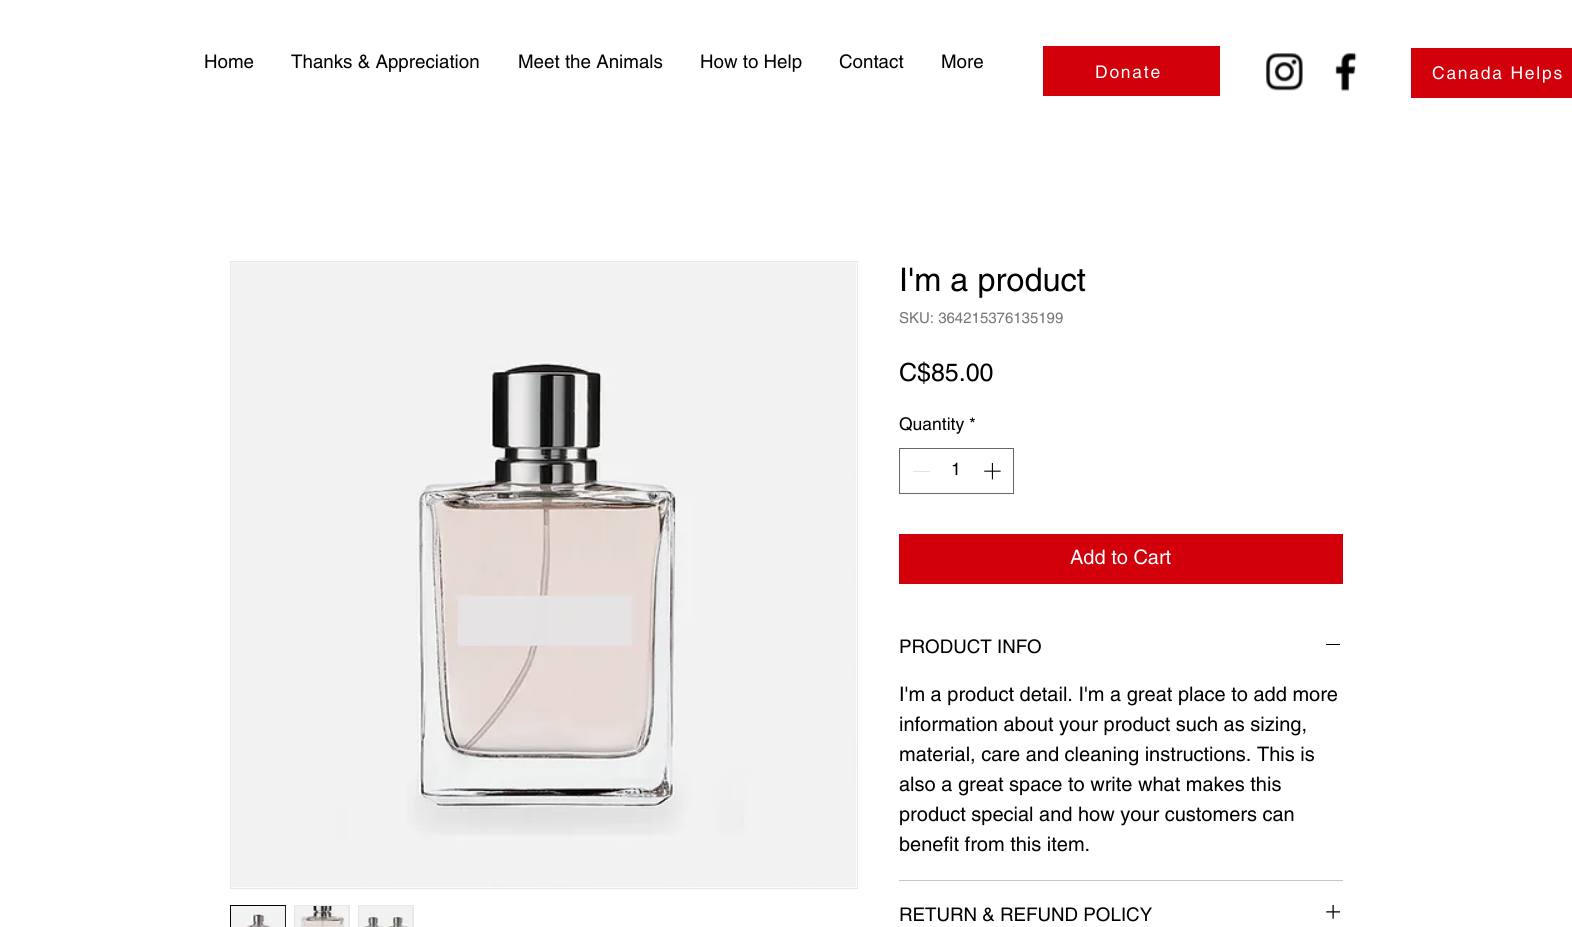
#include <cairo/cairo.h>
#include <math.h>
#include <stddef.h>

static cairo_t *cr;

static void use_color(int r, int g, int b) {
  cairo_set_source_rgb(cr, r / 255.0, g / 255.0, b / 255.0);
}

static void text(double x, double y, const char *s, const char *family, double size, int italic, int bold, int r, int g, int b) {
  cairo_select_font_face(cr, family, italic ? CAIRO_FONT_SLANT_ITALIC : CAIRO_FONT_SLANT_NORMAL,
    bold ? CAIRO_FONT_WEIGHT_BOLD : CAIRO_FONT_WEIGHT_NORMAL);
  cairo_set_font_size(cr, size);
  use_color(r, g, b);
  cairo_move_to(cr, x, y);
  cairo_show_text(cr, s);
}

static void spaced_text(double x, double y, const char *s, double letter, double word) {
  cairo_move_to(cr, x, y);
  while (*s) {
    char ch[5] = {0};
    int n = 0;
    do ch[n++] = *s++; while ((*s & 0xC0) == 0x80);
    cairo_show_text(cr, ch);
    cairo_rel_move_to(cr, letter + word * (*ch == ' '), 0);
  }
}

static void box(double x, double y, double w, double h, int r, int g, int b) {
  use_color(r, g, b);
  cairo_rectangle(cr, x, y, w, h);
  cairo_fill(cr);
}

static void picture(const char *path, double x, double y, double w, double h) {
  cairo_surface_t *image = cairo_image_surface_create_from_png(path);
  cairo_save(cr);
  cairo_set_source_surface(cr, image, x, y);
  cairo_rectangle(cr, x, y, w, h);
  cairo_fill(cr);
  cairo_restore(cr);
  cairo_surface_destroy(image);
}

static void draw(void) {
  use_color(255, 255, 255);
  cairo_paint(cr);
  box(1043, 46, 177, 50, 209, 0, 10);
  picture("img_01.png", 1266, 53, 37, 38);
  picture("img_02.png", 1335, 53, 22, 39);
  box(1411, 48, 161, 50, 209, 0, 10);
  cairo_rectangle(cr, 230.5, 261.5, 627, 627);
  use_color(232, 230, 230);
  cairo_set_line_width(cr, 1);
  cairo_stroke(cr);
  picture("img_03.png", 231, 262, 626, 626);
  box(284, 906, 1, 21, 232, 230, 230);
  cairo_rectangle(cr, 230.5, 905.5, 55, 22);
  use_color(0, 0, 0);
  cairo_stroke(cr);
  picture("img_04.png", 231, 906, 55, 21);
  box(294, 905, 56, 22, 232, 230, 230);
  picture("img_05.png", 295, 906, 54, 21);
  box(358, 905, 56, 22, 232, 230, 230);
  picture("img_06.png", 359, 906, 54, 21);
  cairo_rectangle(cr, 899.5, 448.5, 114, 45);
  use_color(102, 102, 102);
  cairo_stroke(cr);
  box(913, 471, 17, 1, 227, 227, 227);
  picture("img_07.png", 984, 462, 17, 18);
  box(899, 534, 444, 50, 209, 0, 10);
  box(899, 880, 444, 1, 199, 199, 199);
  box(1326, 644, 14, 1, 0, 0, 0);
  picture("img_08.png", 1326, 905, 14, 14);
  text(204, 68, "Home", "helvetica", 18.75, 0, 0, 0, 0, 0);
  text(291, 68, "Thanks & Appreciation", "helvetica", 18.75, 0, 0, 0, 0, 0);
  text(518, 68, "Meet the Animals", "helvetica", 18.75, 0, 0, 0, 0, 0);
  text(700, 68, "How to Help", "helvetica", 18.75, 0, 0, 0, 0, 0);
  text(839, 68, "Contact", "helvetica", 18.75, 0, 0, 0, 0, 0);
  text(941, 68, "More", "helvetica", 18.75, 0, 0, 0, 0, 0);
  cairo_set_font_size(cr, 17.5);
  use_color(255, 255, 255);
  spaced_text(1095, 78, "Donate", 1.75, 0);
  spaced_text(1432, 79, "Canada Helps", 1.75, 0);
  text(899, 291, "I'm a product", "helvetica", 32.5, 0, 0, 0, 0, 0);
  text(899, 323, "SKU: 364215376135199", "helvetica", 15, 0, 0, 117, 117, 117);
  text(899, 381, "C$85.00", "helvetica", 25, 0, 0, 0, 0, 0);
  text(899, 430, "Quantity *", "helvetica", 17.5, 0, 0, 0, 0, 0);
  text(951, 475, "1", "helvetica", 17.5, 0, 0, 0, 0, 0);
  text(1070, 564, "Add to Cart", "helvetica", 20, 0, 0, 255, 255, 255);
  text(899, 653, "PRODUCT INFO", "helvetica", 18.75, 0, 0, 0, 0, 0);
  text(899, 701, "I'm a product detail. I'm a great place to add more", "helvetica", 20, 0, 0, 0, 0, 0);
  text(899, 731, "information about your product such as sizing,", "helvetica", 20, 0, 0, 0, 0, 0);
  text(899, 761, "material, care and cleaning instructions. This is", "helvetica", 20, 0, 0, 0, 0, 0);
  text(899, 791, "also a great space to write what makes this", "helvetica", 20, 0, 0, 0, 0, 0);
  text(899, 821, "product special and how your customers can", "helvetica", 20, 0, 0, 0, 0, 0);
  text(899, 851, "benefit from this item.", "helvetica", 20, 0, 0, 0, 0, 0);
  text(899, 921, "RETURN & REFUND POLICY", "helvetica", 18.75, 0, 0, 0, 0, 0);
}

int main(void) {
  cairo_surface_t *surface = cairo_image_surface_create(CAIRO_FORMAT_RGB24, 1572, 927);
  cr = cairo_create(surface);
  cairo_font_options_t *options = cairo_font_options_create();
  cairo_font_options_set_hint_metrics(options, CAIRO_HINT_METRICS_OFF);
  cairo_font_options_set_hint_style(options, CAIRO_HINT_STYLE_NONE);
  cairo_set_font_options(cr, options);
  cairo_set_miter_limit(cr, 4);
  draw();
  cairo_surface_write_to_png(surface, "out.png");
  cairo_font_options_destroy(options);
  cairo_destroy(cr);
  cairo_surface_destroy(surface);
  return 0;
}
